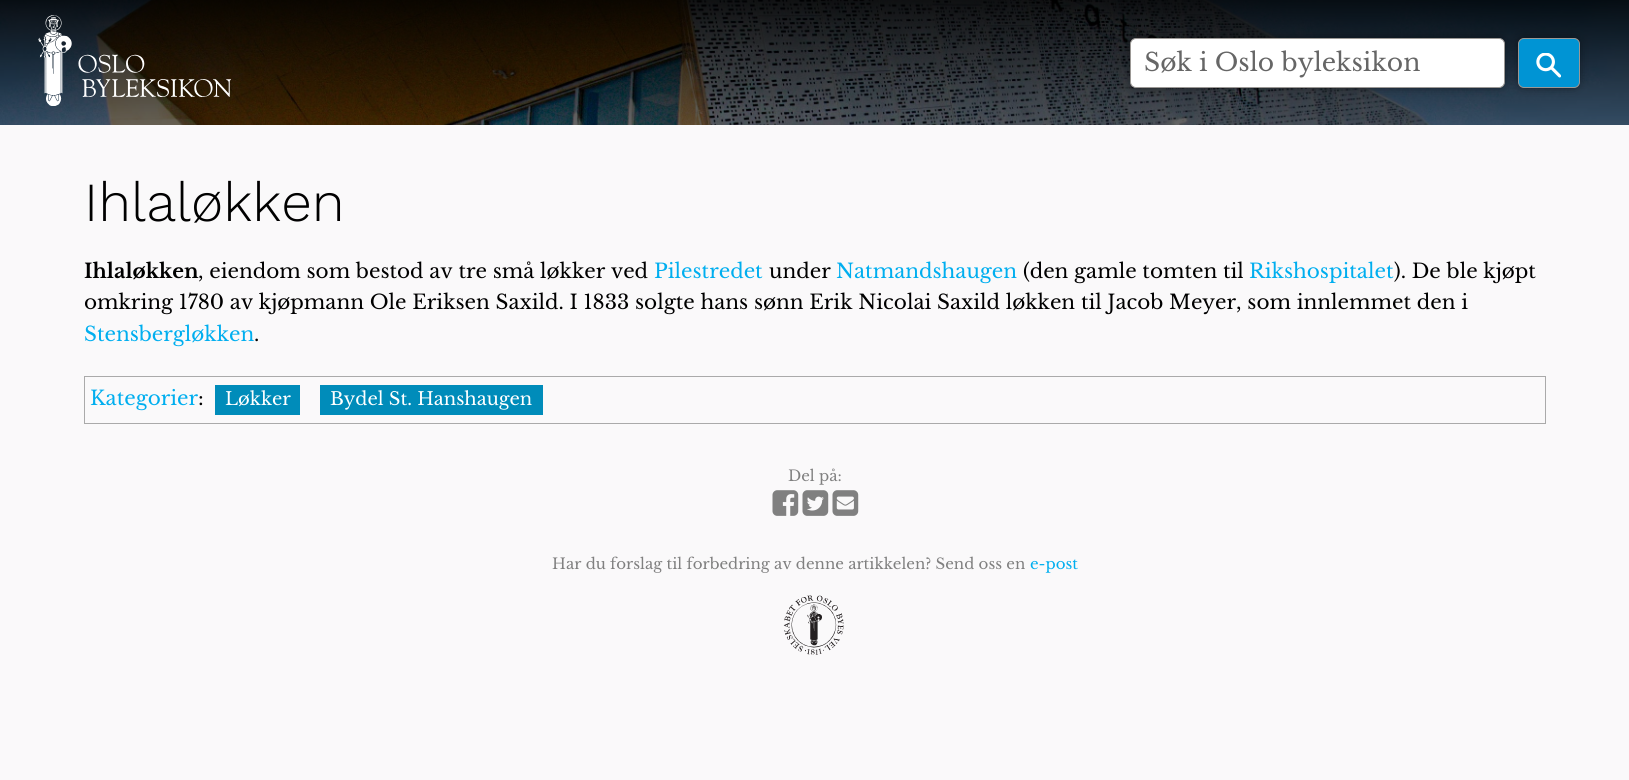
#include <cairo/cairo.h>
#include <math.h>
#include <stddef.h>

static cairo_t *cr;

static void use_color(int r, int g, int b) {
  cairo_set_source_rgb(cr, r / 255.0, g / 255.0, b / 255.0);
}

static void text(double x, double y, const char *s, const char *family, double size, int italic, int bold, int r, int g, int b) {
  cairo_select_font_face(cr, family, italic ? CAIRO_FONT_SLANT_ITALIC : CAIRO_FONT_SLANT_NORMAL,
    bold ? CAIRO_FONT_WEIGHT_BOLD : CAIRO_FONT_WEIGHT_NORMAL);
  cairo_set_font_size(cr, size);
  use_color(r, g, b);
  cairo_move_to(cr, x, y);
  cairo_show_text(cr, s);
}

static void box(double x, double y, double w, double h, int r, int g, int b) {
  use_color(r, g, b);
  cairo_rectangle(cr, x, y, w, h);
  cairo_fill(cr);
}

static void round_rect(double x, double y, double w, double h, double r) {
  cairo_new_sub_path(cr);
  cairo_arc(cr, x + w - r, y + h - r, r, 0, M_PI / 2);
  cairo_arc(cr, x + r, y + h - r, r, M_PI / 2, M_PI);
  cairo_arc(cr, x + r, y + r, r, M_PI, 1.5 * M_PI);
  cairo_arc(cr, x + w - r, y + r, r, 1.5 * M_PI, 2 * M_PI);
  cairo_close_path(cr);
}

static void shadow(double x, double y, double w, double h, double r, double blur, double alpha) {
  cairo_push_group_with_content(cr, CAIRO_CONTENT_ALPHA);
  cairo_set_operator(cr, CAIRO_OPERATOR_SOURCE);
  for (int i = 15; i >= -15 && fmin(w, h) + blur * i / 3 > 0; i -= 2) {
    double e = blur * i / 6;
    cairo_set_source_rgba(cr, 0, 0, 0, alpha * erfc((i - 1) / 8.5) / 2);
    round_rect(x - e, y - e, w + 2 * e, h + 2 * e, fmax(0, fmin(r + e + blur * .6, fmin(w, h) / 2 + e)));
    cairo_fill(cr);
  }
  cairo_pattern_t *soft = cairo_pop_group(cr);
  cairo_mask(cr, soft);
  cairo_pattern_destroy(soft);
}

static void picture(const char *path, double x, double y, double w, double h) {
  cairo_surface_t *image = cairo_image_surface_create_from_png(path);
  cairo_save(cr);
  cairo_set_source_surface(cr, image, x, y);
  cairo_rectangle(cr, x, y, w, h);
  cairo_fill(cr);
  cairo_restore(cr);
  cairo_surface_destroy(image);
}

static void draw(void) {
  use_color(250, 249, 250);
  cairo_paint(cr);
  picture("img_01.png", 0, 0, 1629, 125);
  picture("img_02.png", 38, 15, 193, 91);
  use_color(0, 0, 0);
  shadow(1134, 41, 367, 43, 2.5, 6, 0.75);
  use_color(255, 255, 255);
  round_rect(1130.5, 38.5, 374, 49, 5.5);
  cairo_fill_preserve(cr);
  use_color(155, 152, 149);
  cairo_set_line_width(cr, 1);
  cairo_stroke(cr);
  use_color(0, 0, 0);
  shadow(1521, 41, 55, 43, 2.5, 6, 0.75);
  use_color(0, 148, 212);
  round_rect(1518.5, 38.5, 61, 49, 5.5);
  cairo_fill_preserve(cr);
  use_color(155, 152, 149);
  cairo_stroke(cr);
  picture("img_03.png", 1536, 53, 25, 25);
  cairo_rectangle(cr, 84.5, 376.5, 1461, 47);
  use_color(170, 170, 170);
  cairo_stroke(cr);
  box(215, 385, 85, 30, 0, 140, 186);
  box(320, 385, 223, 30, 0, 140, 186);
  picture("img_04.png", 772, 490, 27, 26);
  picture("img_05.png", 802, 490, 27, 26);
  picture("img_06.png", 832, 490, 27, 26);
  picture("img_07.png", 783, 595, 61, 60);
  text(1144, 71, "Søk i Oslo byleksikon", "Libre Baskerville", 25, 0, 0, 102, 102, 102);
  text(84, 221, "Ihlaløkken", "Work Sans Light", 55, 0, 0, 0, 0, 0);
  text(84, 278, "Ihlaløkken", "Libre Baskerville", 20, 0, 1, 0, 0, 0);
  text(198, 278, ", eiendom som bestod av tre små løkker ved", "Libre Baskerville", 20, 0, 0, 0, 0, 0);
  text(654, 278, "Pilestredet", "Libre Baskerville", 20, 0, 0, 0, 174, 239);
  text(769, 278, "under", "Libre Baskerville", 20, 0, 0, 0, 0, 0);
  text(836, 278, "Natmandshaugen", "Libre Baskerville", 20, 0, 0, 0, 174, 239);
  text(1023, 278, "(den gamle tomten til", "Libre Baskerville", 20, 0, 0, 0, 0, 0);
  text(1249, 278, "Rikshospitalet", "Libre Baskerville", 20, 0, 0, 0, 174, 239);
  text(1394, 278, "). De ble kjøpt", "Libre Baskerville", 20, 0, 0, 0, 0, 0);
  text(84, 309, "omkring 1780 av kjøpmann Ole Eriksen Saxild. I 1833 solgte hans sønn Erik Nicolai Saxild løkken til Jacob Meyer, som innlemmet den i", "Libre Baskerville", 20, 0, 0, 0, 0, 0);
  text(84, 341, "Stensbergløkken", "Libre Baskerville", 20, 0, 0, 0, 174, 239);
  text(254, 341, ".", "Libre Baskerville", 20, 0, 0, 0, 0, 0);
  text(90, 405, "Kategorier", "Libre Baskerville", 20, 0, 0, 0, 174, 239);
  text(198, 405, ":", "Libre Baskerville", 20, 0, 0, 0, 0, 0);
  text(225, 405, "Løkker", "Libre Baskerville", 18, 0, 0, 255, 255, 255);
  text(330, 405, "Bydel St. Hanshaugen", "Libre Baskerville", 18, 0, 0, 255, 255, 255);
  text(788, 481, "Del på:", "Libre Baskerville", 15, 0, 0, 128, 128, 128);
  text(552, 569, "Har du forslag til forbedring av denne artikkelen? Send oss en", "Libre Baskerville", 15, 0, 0, 128, 128, 128);
  text(1030, 569, "e-post", "Libre Baskerville", 15, 0, 0, 0, 174, 239);
}

int main(void) {
  cairo_surface_t *surface = cairo_image_surface_create(CAIRO_FORMAT_RGB24, 1629, 780);
  cr = cairo_create(surface);
  cairo_font_options_t *options = cairo_font_options_create();
  cairo_font_options_set_hint_metrics(options, CAIRO_HINT_METRICS_OFF);
  cairo_font_options_set_hint_style(options, CAIRO_HINT_STYLE_NONE);
  cairo_set_font_options(cr, options);
  cairo_set_miter_limit(cr, 4);
  draw();
  cairo_surface_write_to_png(surface, "out.png");
  cairo_font_options_destroy(options);
  cairo_destroy(cr);
  cairo_surface_destroy(surface);
  return 0;
}
